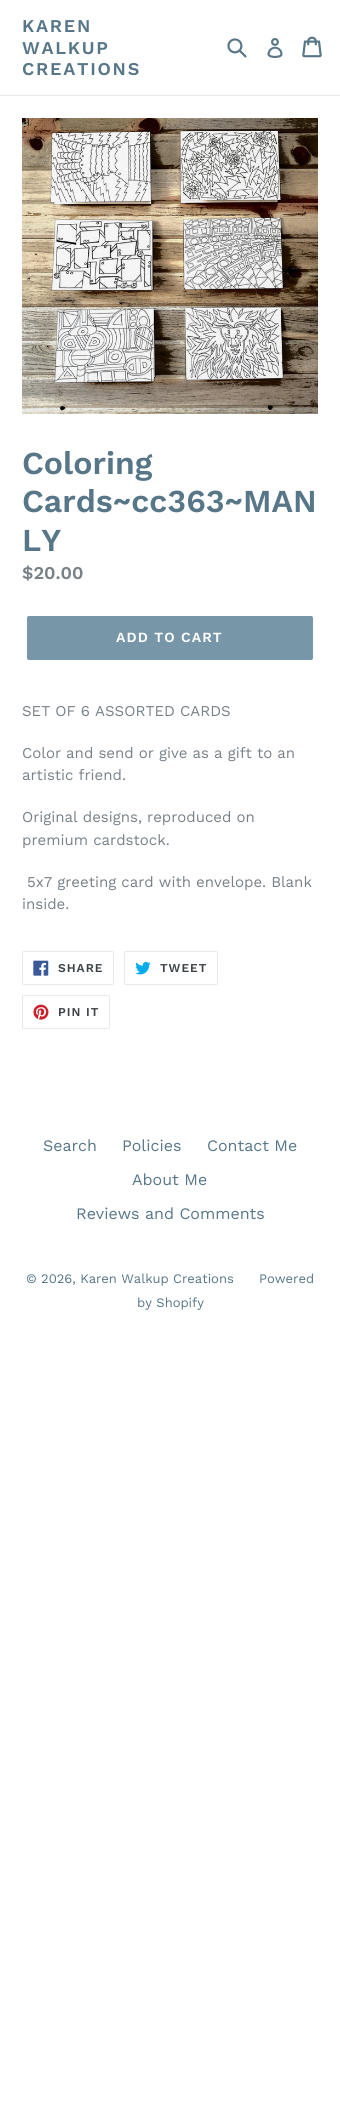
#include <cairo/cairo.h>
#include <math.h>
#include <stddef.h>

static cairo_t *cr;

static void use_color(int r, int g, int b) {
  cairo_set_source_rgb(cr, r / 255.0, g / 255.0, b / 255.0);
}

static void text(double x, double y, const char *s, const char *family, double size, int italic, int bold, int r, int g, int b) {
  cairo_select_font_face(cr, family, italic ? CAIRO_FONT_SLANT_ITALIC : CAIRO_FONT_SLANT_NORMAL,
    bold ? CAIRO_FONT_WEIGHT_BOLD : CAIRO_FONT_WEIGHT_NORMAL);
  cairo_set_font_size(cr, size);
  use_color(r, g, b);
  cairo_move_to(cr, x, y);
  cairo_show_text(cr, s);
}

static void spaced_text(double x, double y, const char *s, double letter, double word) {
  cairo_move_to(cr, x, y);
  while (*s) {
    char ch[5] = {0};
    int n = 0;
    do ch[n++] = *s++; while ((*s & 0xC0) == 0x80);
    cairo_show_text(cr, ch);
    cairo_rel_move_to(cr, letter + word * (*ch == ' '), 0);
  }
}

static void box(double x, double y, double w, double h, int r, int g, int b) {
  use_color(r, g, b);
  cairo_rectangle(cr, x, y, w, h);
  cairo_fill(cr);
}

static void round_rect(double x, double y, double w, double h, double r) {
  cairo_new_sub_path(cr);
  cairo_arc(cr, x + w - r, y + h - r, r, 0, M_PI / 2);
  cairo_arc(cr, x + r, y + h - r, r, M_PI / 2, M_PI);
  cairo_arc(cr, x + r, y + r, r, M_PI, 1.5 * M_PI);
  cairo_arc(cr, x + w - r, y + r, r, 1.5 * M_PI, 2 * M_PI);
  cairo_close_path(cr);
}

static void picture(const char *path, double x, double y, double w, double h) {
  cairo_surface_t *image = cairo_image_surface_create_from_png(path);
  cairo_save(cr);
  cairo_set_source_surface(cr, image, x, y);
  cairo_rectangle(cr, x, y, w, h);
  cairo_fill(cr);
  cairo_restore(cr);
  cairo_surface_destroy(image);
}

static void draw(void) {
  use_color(255, 255, 255);
  cairo_paint(cr);
  box(0, 95, 340, 1, 232, 233, 235);
  picture("img_01.png", 227, 38, 20, 20);
  picture("img_02.png", 267, 38, 16, 20);
  picture("img_03.png", 302, 36, 20, 22);
  picture("img_04.png", 22, 118, 296, 296);
  use_color(119, 150, 168);
  round_rect(27, 616, 286, 44, 2);
  cairo_fill(cr);
  round_rect(22.5, 951.5, 91, 33, 1.5);
  use_color(232, 233, 235);
  cairo_set_line_width(cr, 1);
  cairo_stroke(cr);
  picture("img_05.png", 33, 960, 16, 16);
  round_rect(124.5, 951.5, 93, 33, 1.5);
  cairo_stroke(cr);
  picture("img_06.png", 135, 961, 16, 14);
  round_rect(22.5, 995.5, 87, 33, 1.5);
  cairo_stroke(cr);
  picture("img_07.png", 33, 1004, 16, 16);
  cairo_select_font_face(cr, "Work Sans SemiBold", CAIRO_FONT_SLANT_NORMAL, CAIRO_FONT_WEIGHT_NORMAL);
  cairo_set_font_size(cr, 18);
  use_color(87, 118, 136);
  spaced_text(22, 32, "KAREN", 1.75, 0);
  spaced_text(22, 54, "WALKUP", 1.75, 0);
  spaced_text(22, 75, "CREATIONS", 1.75, 0);
  text(22, 474, "Coloring", "Work Sans SemiBold", 32, 0, 0, 87, 118, 136);
  text(22, 512, "Cards~cc363~MAN", "Work Sans SemiBold", 32, 0, 0, 87, 118, 136);
  text(22, 551, "LY", "Work Sans SemiBold", 32, 0, 0, 87, 118, 136);
  text(22, 579, "$20.00", "Work Sans SemiBold", 18, 0, 0, 120, 129, 136);
  cairo_set_font_size(cr, 14);
  use_color(255, 255, 255);
  spaced_text(116, 642, "ADD TO CART", 1.1, 0);
  text(22, 716, "SET OF 6 ASSORTED CARDS", "Work Sans", 15, 0, 0, 120, 129, 136);
  text(22, 758, "Color and send or give as a gift to an", "Work Sans", 15, 0, 0, 120, 129, 136);
  text(22, 780, "artistic friend.", "Work Sans", 15, 0, 0, 120, 129, 136);
  text(22, 822, "Original designs, reproduced on", "Work Sans", 15, 0, 0, 120, 129, 136);
  text(22, 845, "premium cardstock.", "Work Sans", 15, 0, 0, 120, 129, 136);
  text(27, 887, "5x7 greeting card with envelope. Blank", "Work Sans", 15, 0, 0, 120, 129, 136);
  text(22, 909, "inside.", "Work Sans", 15, 0, 0, 120, 129, 136);
  cairo_select_font_face(cr, "Work Sans SemiBold", CAIRO_FONT_SLANT_NORMAL, CAIRO_FONT_WEIGHT_NORMAL);
  cairo_set_font_size(cr, 12);
  use_color(61, 66, 70);
  spaced_text(58, 972, "SHARE", 1, 0);
  spaced_text(160, 972, "TWEET", 1, 0);
  spaced_text(58, 1016, "PIN IT", 1, 0);
  text(43, 1151, "Search", "Work Sans", 16, 0, 0, 87, 118, 136);
  text(122, 1151, "Policies", "Work Sans", 16, 0, 0, 87, 118, 136);
  text(207, 1151, "Contact Me", "Work Sans", 16, 0, 0, 87, 118, 136);
  text(132, 1185, "About Me", "Work Sans", 16, 0, 0, 87, 118, 136);
  text(76, 1219, "Reviews and Comments", "Work Sans", 16, 0, 0, 87, 118, 136);
  text(26, 1283, "© 2026, Karen Walkup Creations", "Work Sans", 13, 0, 0, 87, 118, 136);
  text(259, 1283, "Powered", "Work Sans", 13, 0, 0, 87, 118, 136);
  text(137, 1307, "by Shopify", "Work Sans", 13, 0, 0, 87, 118, 136);
}

int main(void) {
  cairo_surface_t *surface = cairo_image_surface_create(CAIRO_FORMAT_RGB24, 340, 2117);
  cr = cairo_create(surface);
  cairo_font_options_t *options = cairo_font_options_create();
  cairo_font_options_set_hint_metrics(options, CAIRO_HINT_METRICS_OFF);
  cairo_font_options_set_hint_style(options, CAIRO_HINT_STYLE_NONE);
  cairo_set_font_options(cr, options);
  cairo_set_miter_limit(cr, 4);
  draw();
  cairo_surface_write_to_png(surface, "out.png");
  cairo_font_options_destroy(options);
  cairo_destroy(cr);
  cairo_surface_destroy(surface);
  return 0;
}
